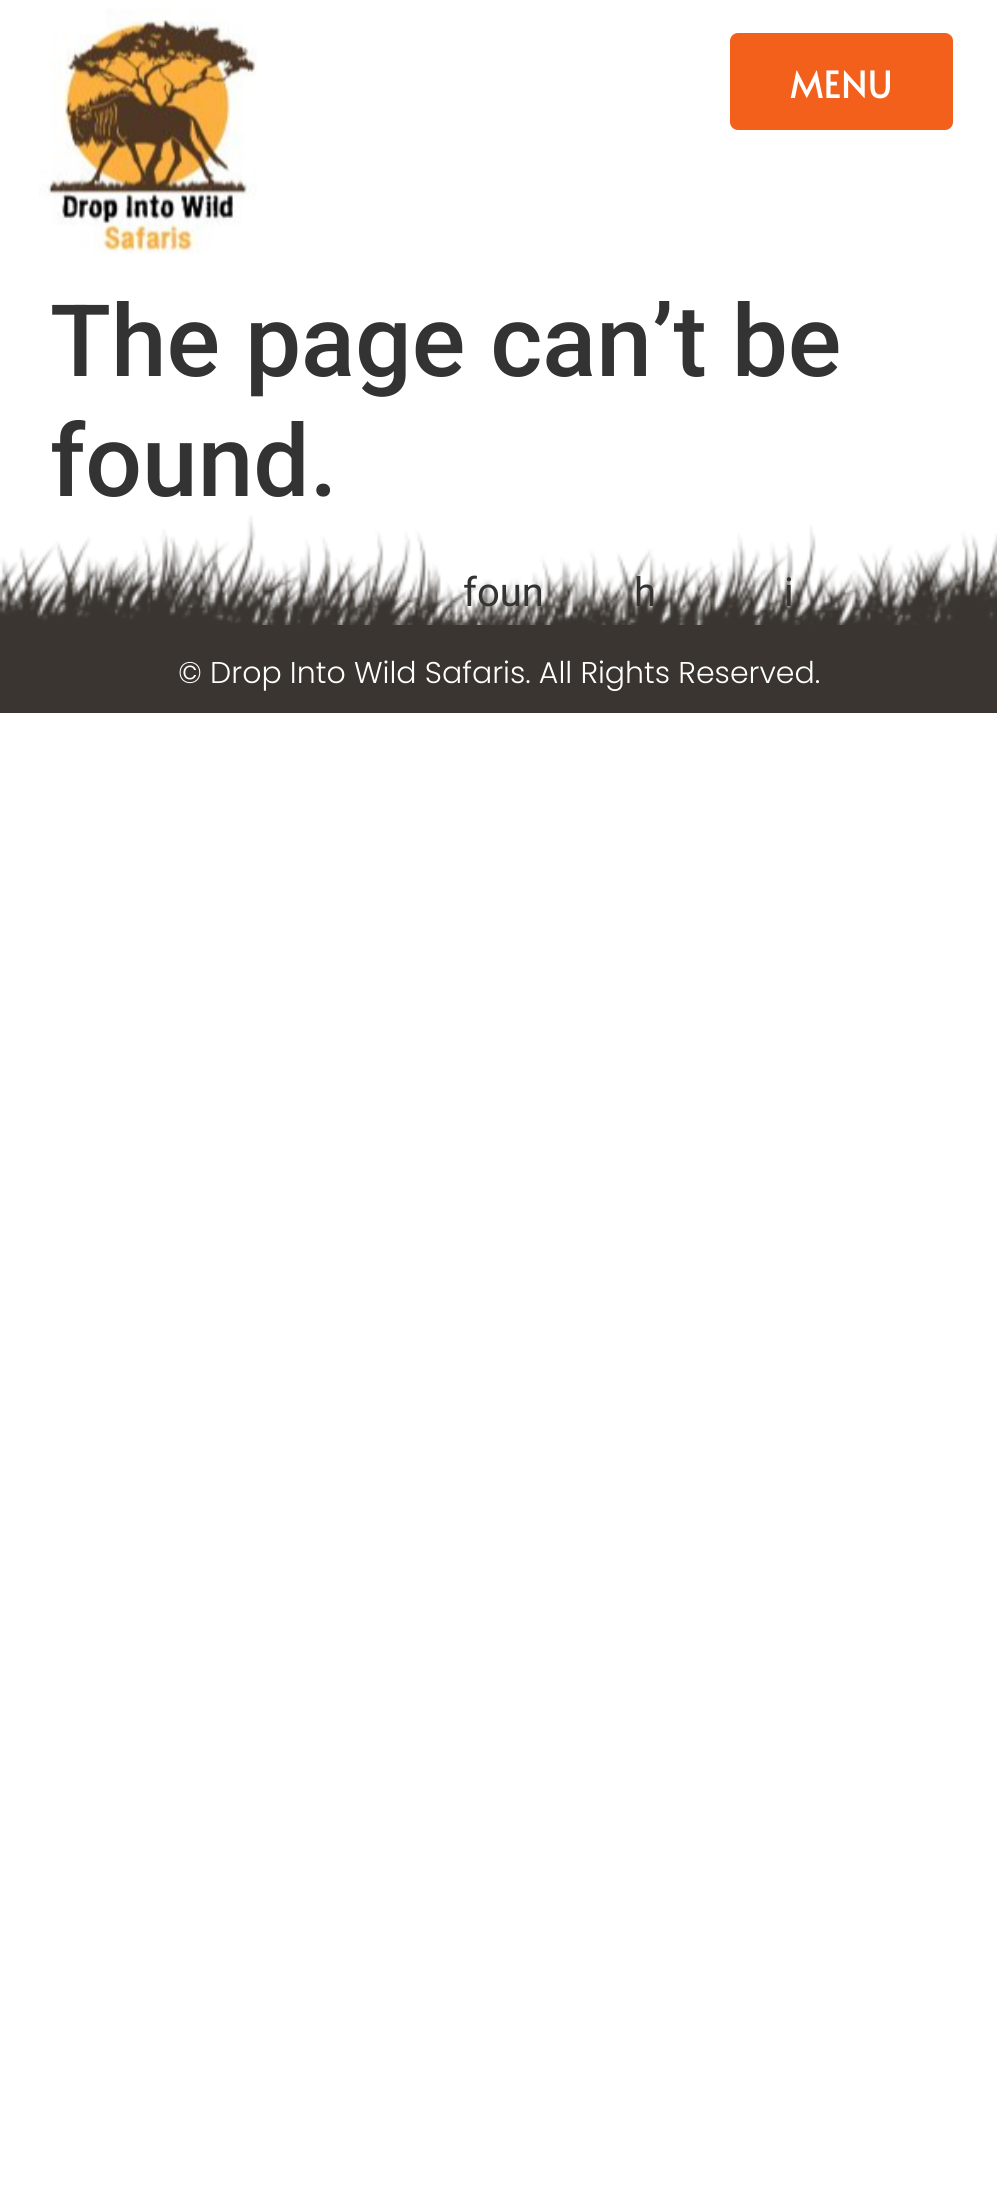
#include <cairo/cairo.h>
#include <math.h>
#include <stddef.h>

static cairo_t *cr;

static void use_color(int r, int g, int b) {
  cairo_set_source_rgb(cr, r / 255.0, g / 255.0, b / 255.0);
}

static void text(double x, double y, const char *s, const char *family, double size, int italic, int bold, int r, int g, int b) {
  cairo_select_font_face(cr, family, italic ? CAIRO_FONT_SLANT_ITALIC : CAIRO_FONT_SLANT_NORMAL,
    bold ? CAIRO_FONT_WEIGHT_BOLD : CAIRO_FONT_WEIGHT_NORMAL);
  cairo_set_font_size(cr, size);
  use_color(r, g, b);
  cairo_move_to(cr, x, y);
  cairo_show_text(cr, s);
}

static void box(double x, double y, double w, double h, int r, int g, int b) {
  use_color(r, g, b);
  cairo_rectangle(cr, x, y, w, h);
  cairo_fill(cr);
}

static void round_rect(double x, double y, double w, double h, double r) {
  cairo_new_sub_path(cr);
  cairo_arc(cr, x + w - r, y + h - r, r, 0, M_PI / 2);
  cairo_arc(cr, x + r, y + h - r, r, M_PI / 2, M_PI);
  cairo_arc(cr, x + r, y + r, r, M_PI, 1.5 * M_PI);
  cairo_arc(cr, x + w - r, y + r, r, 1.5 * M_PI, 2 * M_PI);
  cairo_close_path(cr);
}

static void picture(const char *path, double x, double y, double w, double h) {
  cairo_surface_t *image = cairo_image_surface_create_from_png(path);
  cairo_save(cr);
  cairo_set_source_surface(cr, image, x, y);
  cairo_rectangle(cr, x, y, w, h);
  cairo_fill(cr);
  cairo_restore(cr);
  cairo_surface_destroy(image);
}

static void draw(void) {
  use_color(255, 255, 255);
  cairo_paint(cr);
  picture("img_01.png", 39, 7, 220, 247);
  use_color(243, 96, 27);
  round_rect(730, 33, 223, 97, 8);
  cairo_fill(cr);
  box(0, 625, 997, 88, 58, 53, 48);
  text(790, 98, "MENU", "Alata", 37.5, 0, 0, 255, 255, 255);
  text(50, 376, "The page can’t be", "Roboto Medium", 100, 0, 0, 51, 51, 51);
  text(50, 496, "found.", "Roboto Medium", 100, 0, 0, 51, 51, 51);
  text(463, 606, "foun", "Roboto", 40, 0, 0, 51, 51, 51);
  text(634, 606, "h", "Roboto", 40, 0, 0, 51, 51, 51);
  text(784, 606, "i", "Roboto", 40, 0, 0, 51, 51, 51);
  picture("img_02.png", 0, 515, 997, 110);
  text(178, 683, "© Drop Into Wild Safaris. All Rights Reserved.", "Poppins Light", 30, 0, 0, 255, 255, 255);
}

int main(void) {
  cairo_surface_t *surface = cairo_image_surface_create(CAIRO_FORMAT_RGB24, 997, 2201);
  cr = cairo_create(surface);
  cairo_font_options_t *options = cairo_font_options_create();
  cairo_font_options_set_hint_metrics(options, CAIRO_HINT_METRICS_OFF);
  cairo_font_options_set_hint_style(options, CAIRO_HINT_STYLE_NONE);
  cairo_set_font_options(cr, options);
  cairo_set_miter_limit(cr, 4);
  draw();
  cairo_surface_write_to_png(surface, "out.png");
  cairo_font_options_destroy(options);
  cairo_destroy(cr);
  cairo_surface_destroy(surface);
  return 0;
}
